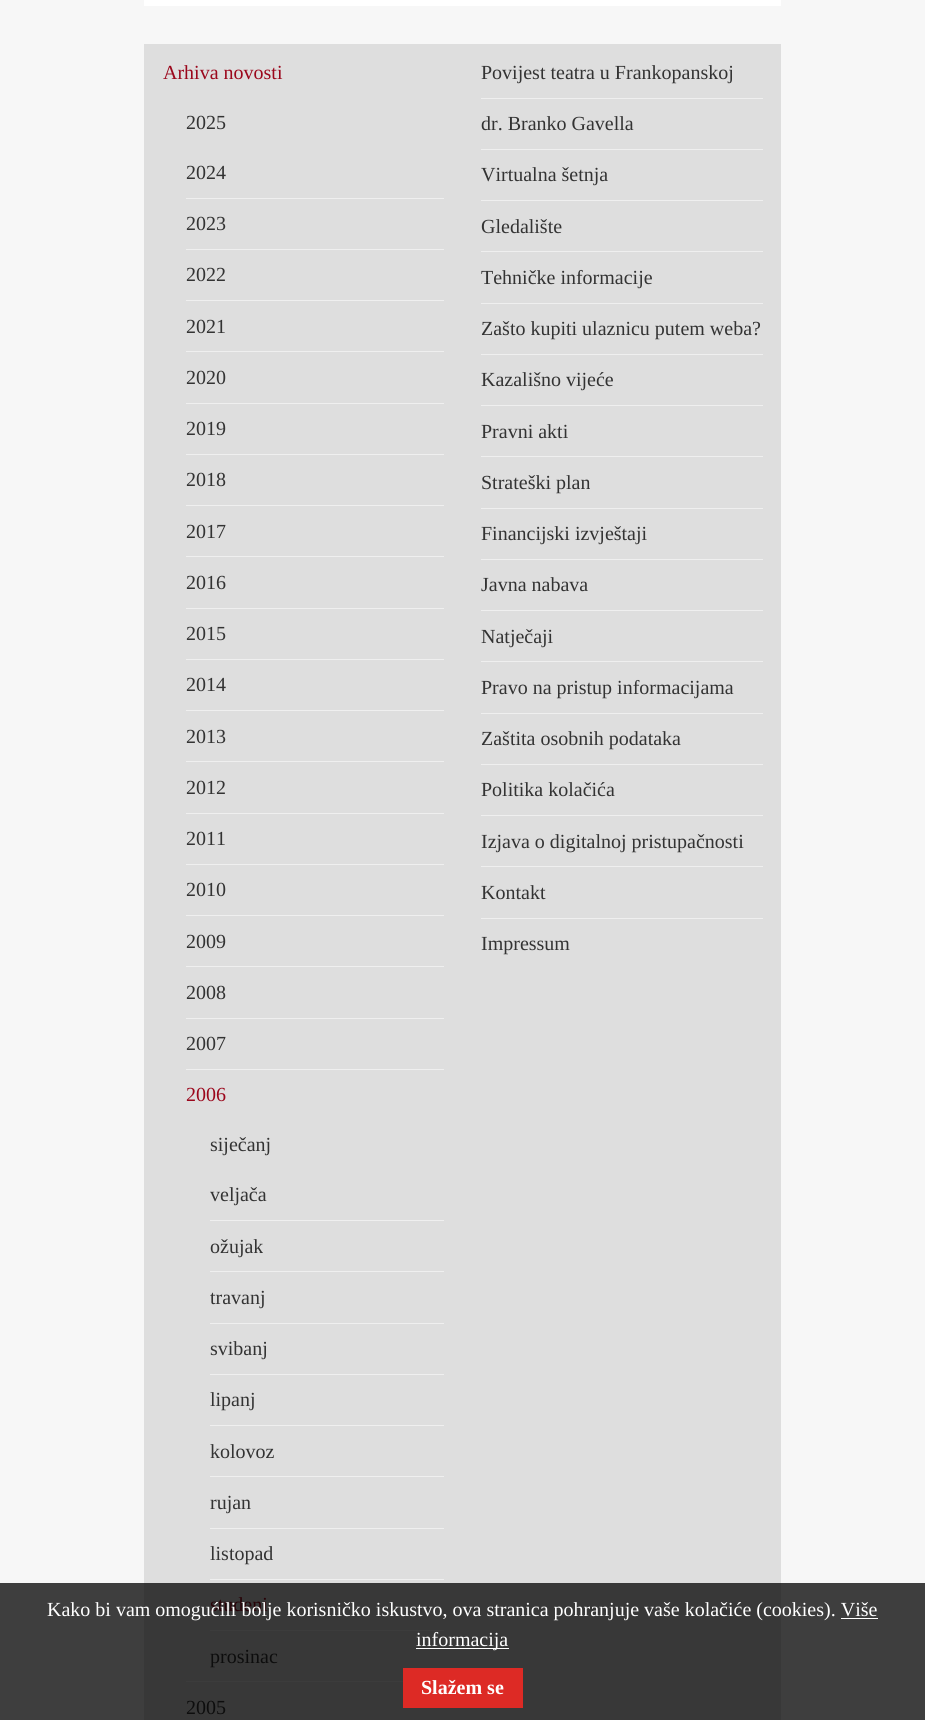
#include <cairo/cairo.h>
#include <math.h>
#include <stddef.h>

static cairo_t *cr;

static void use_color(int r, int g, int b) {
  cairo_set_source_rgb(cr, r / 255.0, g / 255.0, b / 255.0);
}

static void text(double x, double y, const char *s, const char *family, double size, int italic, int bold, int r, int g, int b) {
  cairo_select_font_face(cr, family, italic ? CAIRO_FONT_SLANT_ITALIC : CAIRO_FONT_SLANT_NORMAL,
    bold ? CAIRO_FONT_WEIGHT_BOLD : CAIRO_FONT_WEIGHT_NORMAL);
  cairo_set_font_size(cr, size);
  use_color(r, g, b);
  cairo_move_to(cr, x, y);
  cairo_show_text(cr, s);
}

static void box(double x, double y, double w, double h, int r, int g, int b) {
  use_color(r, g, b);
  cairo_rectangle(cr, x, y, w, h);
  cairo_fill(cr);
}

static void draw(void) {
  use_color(247, 247, 247);
  cairo_paint(cr);
  box(0, 1583, 925, 137, 62, 62, 62);
  box(144, 0, 637, 6, 255, 255, 255);
  box(144, 44, 637, 1539, 222, 222, 222);
  box(144, 1583, 637, 137, 56, 56, 56);
  box(186, 198, 258, 1, 239, 239, 239);
  box(186, 249, 258, 1, 239, 239, 239);
  box(186, 300, 258, 1, 239, 239, 239);
  box(186, 351, 258, 1, 239, 239, 239);
  box(186, 403, 258, 1, 239, 239, 239);
  box(186, 454, 258, 1, 239, 239, 239);
  box(186, 505, 258, 1, 239, 239, 239);
  box(186, 556, 258, 1, 239, 239, 239);
  box(186, 608, 258, 1, 239, 239, 239);
  box(186, 659, 258, 1, 239, 239, 239);
  box(186, 710, 258, 1, 239, 239, 239);
  box(186, 761, 258, 1, 239, 239, 239);
  box(186, 813, 258, 1, 239, 239, 239);
  box(186, 864, 258, 1, 239, 239, 239);
  box(186, 915, 258, 1, 239, 239, 239);
  box(186, 966, 258, 1, 239, 239, 239);
  box(186, 1018, 258, 1, 239, 239, 239);
  box(186, 1069, 258, 1, 239, 239, 239);
  box(210, 1220, 234, 1, 239, 239, 239);
  box(210, 1271, 234, 1, 239, 239, 239);
  box(210, 1323, 234, 1, 239, 239, 239);
  box(210, 1374, 234, 1, 239, 239, 239);
  box(210, 1425, 234, 1, 239, 239, 239);
  box(210, 1476, 234, 1, 239, 239, 239);
  box(210, 1528, 234, 1, 239, 239, 239);
  box(210, 1579, 234, 1, 239, 239, 239);
  box(210, 1630, 234, 1, 60, 60, 60);
  box(186, 1681, 217, 1, 60, 60, 60);
  box(481, 98, 282, 1, 239, 239, 239);
  box(481, 149, 282, 1, 239, 239, 239);
  box(481, 200, 282, 1, 239, 239, 239);
  box(481, 251, 282, 1, 239, 239, 239);
  box(481, 303, 282, 1, 239, 239, 239);
  box(481, 354, 282, 1, 239, 239, 239);
  box(481, 405, 282, 1, 239, 239, 239);
  box(481, 456, 282, 1, 239, 239, 239);
  box(481, 508, 282, 1, 239, 239, 239);
  box(481, 559, 282, 1, 239, 239, 239);
  box(481, 610, 282, 1, 239, 239, 239);
  box(481, 661, 282, 1, 239, 239, 239);
  box(481, 713, 282, 1, 239, 239, 239);
  box(481, 764, 282, 1, 239, 239, 239);
  box(481, 815, 282, 1, 239, 239, 239);
  box(481, 866, 282, 1, 239, 239, 239);
  box(481, 918, 282, 1, 239, 239, 239);
  box(841, 1618, 37, 1, 255, 255, 255);
  box(416, 1648, 93, 1, 255, 255, 255);
  box(403, 1668, 120, 40, 221, 42, 37);
  text(163, 79, "Arhiva novosti", "Liberation Serif", 20, 0, 0, 155, 7, 28);
  text(186, 129, "2025", "Liberation Serif", 20, 0, 0, 51, 51, 51);
  text(186, 179, "2024", "Liberation Serif", 20, 0, 0, 51, 51, 51);
  text(186, 230, "2023", "Liberation Serif", 20, 0, 0, 51, 51, 51);
  text(186, 281, "2022", "Liberation Serif", 20, 0, 0, 51, 51, 51);
  text(186, 333, "2021", "Liberation Serif", 20, 0, 0, 51, 51, 51);
  text(186, 384, "2020", "Liberation Serif", 20, 0, 0, 51, 51, 51);
  text(186, 435, "2019", "Liberation Serif", 20, 0, 0, 51, 51, 51);
  text(186, 486, "2018", "Liberation Serif", 20, 0, 0, 51, 51, 51);
  text(186, 538, "2017", "Liberation Serif", 20, 0, 0, 51, 51, 51);
  text(186, 589, "2016", "Liberation Serif", 20, 0, 0, 51, 51, 51);
  text(186, 640, "2015", "Liberation Serif", 20, 0, 0, 51, 51, 51);
  text(186, 691, "2014", "Liberation Serif", 20, 0, 0, 51, 51, 51);
  text(186, 743, "2013", "Liberation Serif", 20, 0, 0, 51, 51, 51);
  text(186, 794, "2012", "Liberation Serif", 20, 0, 0, 51, 51, 51);
  text(186, 845, "2011", "Liberation Serif", 20, 0, 0, 51, 51, 51);
  text(186, 896, "2010", "Liberation Serif", 20, 0, 0, 51, 51, 51);
  text(186, 948, "2009", "Liberation Serif", 20, 0, 0, 51, 51, 51);
  text(186, 999, "2008", "Liberation Serif", 20, 0, 0, 51, 51, 51);
  text(186, 1050, "2007", "Liberation Serif", 20, 0, 0, 51, 51, 51);
  text(186, 1101, "2006", "Liberation Serif", 20, 0, 0, 155, 7, 28);
  text(210, 1151, "siječanj", "Liberation Serif", 20, 0, 0, 51, 51, 51);
  text(210, 1201, "veljača", "Liberation Serif", 20, 0, 0, 51, 51, 51);
  text(210, 1253, "ožujak", "Liberation Serif", 20, 0, 0, 51, 51, 51);
  text(210, 1304, "travanj", "Liberation Serif", 20, 0, 0, 51, 51, 51);
  text(210, 1355, "svibanj", "Liberation Serif", 20, 0, 0, 51, 51, 51);
  text(210, 1406, "lipanj", "Liberation Serif", 20, 0, 0, 51, 51, 51);
  text(210, 1458, "kolovoz", "Liberation Serif", 20, 0, 0, 51, 51, 51);
  text(210, 1509, "rujan", "Liberation Serif", 20, 0, 0, 51, 51, 51);
  text(210, 1560, "listopad", "Liberation Serif", 20, 0, 0, 51, 51, 51);
  text(210, 1611, "studeni", "Liberation Serif", 20, 0, 0, 39, 2, 7);
  text(210, 1663, "prosinac", "Liberation Serif", 20, 0, 0, 13, 13, 13);
  text(186, 1714, "2005", "Liberation Serif", 20, 0, 0, 13, 13, 13);
  text(481, 79, "Povijest teatra u Frankopanskoj", "Liberation Serif", 20, 0, 0, 51, 51, 51);
  text(481, 130, "dr. Branko Gavella", "Liberation Serif", 20, 0, 0, 51, 51, 51);
  text(481, 181, "Virtualna šetnja", "Liberation Serif", 20, 0, 0, 51, 51, 51);
  text(481, 233, "Gledalište", "Liberation Serif", 20, 0, 0, 51, 51, 51);
  text(481, 284, "Tehničke informacije", "Liberation Serif", 20, 0, 0, 51, 51, 51);
  text(481, 335, "Zašto kupiti ulaznicu putem weba?", "Liberation Serif", 20, 0, 0, 51, 51, 51);
  text(481, 386, "Kazališno vijeće", "Liberation Serif", 20, 0, 0, 51, 51, 51);
  text(481, 438, "Pravni akti", "Liberation Serif", 20, 0, 0, 51, 51, 51);
  text(481, 489, "Strateški plan", "Liberation Serif", 20, 0, 0, 51, 51, 51);
  text(481, 540, "Financijski izvještaji", "Liberation Serif", 20, 0, 0, 51, 51, 51);
  text(481, 591, "Javna nabava", "Liberation Serif", 20, 0, 0, 51, 51, 51);
  text(481, 643, "Natječaji", "Liberation Serif", 20, 0, 0, 51, 51, 51);
  text(481, 694, "Pravo na pristup informacijama", "Liberation Serif", 20, 0, 0, 51, 51, 51);
  text(481, 745, "Zaštita osobnih podataka", "Liberation Serif", 20, 0, 0, 51, 51, 51);
  text(481, 796, "Politika kolačića", "Liberation Serif", 20, 0, 0, 51, 51, 51);
  text(481, 848, "Izjava o digitalnoj pristupačnosti", "Liberation Serif", 20, 0, 0, 51, 51, 51);
  text(481, 899, "Kontakt", "Liberation Serif", 20, 0, 0, 51, 51, 51);
  text(481, 950, "Impressum", "Liberation Serif", 20, 0, 0, 51, 51, 51);
  text(47, 1616, "Kako bi vam omogućili bolje korisničko iskustvo, ova stranica pohranjuje vaše kolačiće (cookies). Više", "Liberation Serif", 20, 0, 0, 255, 255, 255);
  text(416, 1646, "informacija", "Liberation Serif", 20, 0, 0, 255, 255, 255);
  text(421, 1694, "Slažem se", "Liberation Serif", 20, 0, 1, 255, 255, 255);
}

int main(void) {
  cairo_surface_t *surface = cairo_image_surface_create(CAIRO_FORMAT_RGB24, 925, 1720);
  cr = cairo_create(surface);
  cairo_font_options_t *options = cairo_font_options_create();
  cairo_font_options_set_hint_metrics(options, CAIRO_HINT_METRICS_OFF);
  cairo_font_options_set_hint_style(options, CAIRO_HINT_STYLE_NONE);
  cairo_set_font_options(cr, options);
  cairo_set_miter_limit(cr, 4);
  draw();
  cairo_surface_write_to_png(surface, "out.png");
  cairo_font_options_destroy(options);
  cairo_destroy(cr);
  cairo_surface_destroy(surface);
  return 0;
}
